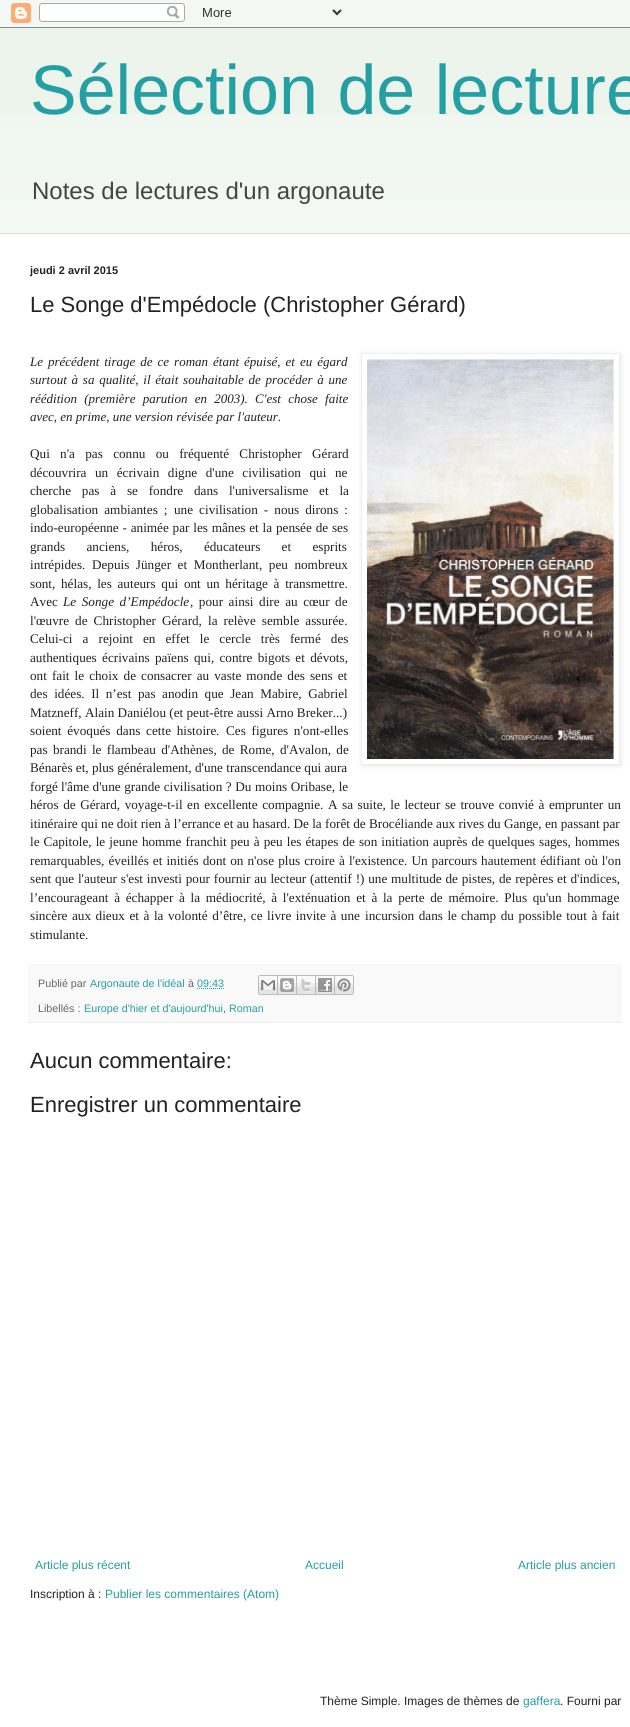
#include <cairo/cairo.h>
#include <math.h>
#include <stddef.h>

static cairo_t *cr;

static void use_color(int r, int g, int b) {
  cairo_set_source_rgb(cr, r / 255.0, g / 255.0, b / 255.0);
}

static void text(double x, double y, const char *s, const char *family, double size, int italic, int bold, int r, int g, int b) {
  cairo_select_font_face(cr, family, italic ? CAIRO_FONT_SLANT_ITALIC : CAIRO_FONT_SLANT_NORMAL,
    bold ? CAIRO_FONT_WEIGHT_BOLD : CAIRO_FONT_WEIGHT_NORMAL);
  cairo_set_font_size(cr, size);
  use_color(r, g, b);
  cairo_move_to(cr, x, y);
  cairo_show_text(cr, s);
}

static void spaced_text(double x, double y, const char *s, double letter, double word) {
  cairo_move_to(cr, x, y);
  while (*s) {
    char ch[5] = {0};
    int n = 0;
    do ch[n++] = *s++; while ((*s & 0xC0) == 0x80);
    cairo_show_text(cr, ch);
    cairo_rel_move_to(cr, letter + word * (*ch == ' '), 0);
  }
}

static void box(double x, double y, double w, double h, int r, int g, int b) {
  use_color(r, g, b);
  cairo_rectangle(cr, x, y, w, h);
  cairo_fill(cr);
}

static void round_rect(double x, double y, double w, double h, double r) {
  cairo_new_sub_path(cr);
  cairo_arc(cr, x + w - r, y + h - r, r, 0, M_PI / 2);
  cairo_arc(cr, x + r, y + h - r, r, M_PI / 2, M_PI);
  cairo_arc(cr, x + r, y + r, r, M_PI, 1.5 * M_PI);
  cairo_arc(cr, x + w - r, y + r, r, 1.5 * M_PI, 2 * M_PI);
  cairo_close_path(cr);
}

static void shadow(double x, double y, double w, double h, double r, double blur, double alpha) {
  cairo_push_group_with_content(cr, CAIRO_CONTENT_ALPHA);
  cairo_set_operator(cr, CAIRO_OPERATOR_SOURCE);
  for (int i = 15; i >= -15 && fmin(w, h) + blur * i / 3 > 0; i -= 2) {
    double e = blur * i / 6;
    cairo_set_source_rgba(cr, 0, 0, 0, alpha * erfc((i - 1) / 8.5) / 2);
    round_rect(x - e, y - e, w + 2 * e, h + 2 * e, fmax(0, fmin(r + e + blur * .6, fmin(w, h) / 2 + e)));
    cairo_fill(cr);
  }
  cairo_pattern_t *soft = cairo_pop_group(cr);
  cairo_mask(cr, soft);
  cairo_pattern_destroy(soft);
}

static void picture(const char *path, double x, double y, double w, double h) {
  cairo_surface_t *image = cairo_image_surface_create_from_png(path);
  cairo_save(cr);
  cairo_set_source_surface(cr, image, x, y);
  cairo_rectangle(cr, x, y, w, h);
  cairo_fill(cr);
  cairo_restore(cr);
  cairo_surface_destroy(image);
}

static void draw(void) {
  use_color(236, 244, 236);
  cairo_paint(cr);
  picture("img_01.png", 0, 0, 630, 28);
  box(0, 234, 630, 1493, 255, 255, 255);
  box(0, 233, 630, 1, 221, 221, 221);
  cairo_save(cr);
  cairo_set_fill_rule(cr, CAIRO_FILL_RULE_EVEN_ODD);
  cairo_new_path(cr);
  cairo_move_to(cr, 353, 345);
  cairo_line_to(cr, 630, 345);
  cairo_line_to(cr, 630, 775);
  cairo_line_to(cr, 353, 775);
  cairo_close_path(cr);
  cairo_move_to(cr, 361, 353);
  cairo_line_to(cr, 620, 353);
  cairo_line_to(cr, 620, 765);
  cairo_line_to(cr, 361, 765);
  cairo_close_path(cr);
  cairo_clip(cr);
  use_color(0, 0, 0);
  shadow(362, 354, 259, 412, 0, 2.5, 0.1);
  cairo_restore(cr);
  cairo_rectangle(cr, 361.5, 353.5, 258, 411);
  use_color(238, 238, 238);
  cairo_set_line_width(cr, 1);
  cairo_stroke(cr);
  picture("img_02.png", 367, 359, 247, 400);
  box(28, 964, 594, 58, 249, 249, 249);
  box(28, 1022, 594, 1, 238, 238, 238);
  cairo_new_path(cr);
  cairo_move_to(cr, 197, 988.5);
  cairo_line_to(cr, 224, 988.5);
  use_color(36, 159, 163);
  cairo_set_dash(cr, (double[]){1, 1}, 2, 0);
  cairo_stroke(cr);
  picture("img_03.png", 258, 975, 20, 20);
  picture("img_04.png", 278, 975, 19, 20);
  picture("img_05.png", 297, 975, 19, 20);
  picture("img_06.png", 316, 975, 19, 20);
  picture("img_07.png", 335, 975, 19, 20);
  picture("img_08.png", 0, 114, 630, 119);
  text(30, 114, "Sélection de lecture", "Liberation Sans", 70, 0, 0, 36, 159, 163);
  text(32, 199, "Notes de lectures d'un argonaute", "Liberation Sans", 24, 0, 0, 68, 68, 68);
  text(30, 274, "jeudi 2 avril 2015", "Liberation Sans", 11, 0, 1, 34, 34, 34);
  text(30, 312, "Le Songe d'Empédocle (Christopher Gérard)", "Liberation Sans", 22, 0, 0, 34, 34, 34);
  cairo_select_font_face(cr, "Liberation Serif", CAIRO_FONT_SLANT_ITALIC, CAIRO_FONT_WEIGHT_NORMAL);
  cairo_set_font_size(cr, 13);
  spaced_text(30, 366, "Le précédent tirage de ce roman étant épuisé, et eu égard", 0, 1.75);
  spaced_text(30, 384, "surtout à sa qualité, il était souhaitable de procéder à une", 0, 1.5);
  spaced_text(30, 403, "réédition (première parution en 2003). C'est chose faite", 0, 4);
  text(30, 421, "avec, en prime, une version révisée par l'auteur.", "Liberation Serif", 13, 1, 0, 34, 34, 34);
  cairo_select_font_face(cr, "Liberation Serif", CAIRO_FONT_SLANT_NORMAL, CAIRO_FONT_WEIGHT_NORMAL);
  cairo_set_font_size(cr, 13.2);
  spaced_text(30, 458, "Qui n'a pas connu ou fréquenté Christopher Gérard", 0, 7);
  spaced_text(30, 477, "découvrira un écrivain digne d'une civilisation qui ne", 0, 5.25);
  spaced_text(30, 495, "cherche pas à se fondre dans l'universalisme et la", 0, 7.5);
  spaced_text(30, 514, "globalisation ambiantes ;", 0, 2.75);
  spaced_text(174, 514, "une civilisation - nous dirons :", 0, 2.75);
  spaced_text(30, 532, "indo-européenne - animée par les mânes et la pensée de ses", 0, 0.5);
  spaced_text(30, 551, "grands anciens, héros, éducateurs et esprits", 0, 18);
  spaced_text(30, 569, "intrépides. Depuis Jünger et Montherlant, peu nombreux", 0, 3.25);
  spaced_text(30, 588, "sont, hélas, les auteurs qui ont un héritage à transmettre.", 0, 2.4);
  text(30, 606, "Avec", "Liberation Serif", 13.2, 0, 0, 34, 34, 34);
  cairo_select_font_face(cr, "Liberation Serif", CAIRO_FONT_SLANT_ITALIC, CAIRO_FONT_WEIGHT_NORMAL);
  spaced_text(63, 606, "Le Songe d’Empédocle", 0, 2.25);
  cairo_select_font_face(cr, "Liberation Serif", CAIRO_FONT_SLANT_NORMAL, CAIRO_FONT_WEIGHT_NORMAL);
  spaced_text(190, 606, ", pour ainsi dire au cœur de", 0, 2.25);
  spaced_text(30, 625, "l'œuvre de Christopher Gérard, la relève semble assurée.", 0, 2.75);
  spaced_text(30, 643, "Celui-ci a rejoint en effet le cercle très fermé des", 0, 6.75);
  spaced_text(30, 662, "authentiques écrivains païens qui, contre bigots et dévots,", 0, 2);
  spaced_text(30, 680, "ont fait le choix de consacrer au vaste monde des sens et", 0, 1.75);
  spaced_text(30, 698, "des idées. Il n’est pas anodin que Jean Mabire, Gabriel", 0, 3.25);
  text(30, 717, "Matzneff, Alain Daniélou (et peut-être aussi Arno Breker...)", "Liberation Serif", 13.2, 0, 0, 34, 34, 34);
  spaced_text(30, 735, "soient évoqués dans cette histoire", 0, 2.4);
  text(216, 735, ".", "Liberation Serif", 13.2, 0, 0, 34, 34, 34);
  spaced_text(226, 735, "Ces figures n'ont-elles", 0, 2.4);
  spaced_text(30, 754, "pas brandi le flambeau d'Athènes, de Rome, d'Avalon, de", 0, 2);
  text(30, 772, "Bénarès et, plus généralement, d'une transcendance qui aura", "Liberation Serif", 13.2, 0, 0, 34, 34, 34);
  text(30, 791, "forgé", "Liberation Serif", 13.2, 0, 0, 34, 34, 34);
  spaced_text(61, 791, "l'âme d'une grande civilisation ? Du moins Oribase, le", 0, 0.25);
  spaced_text(30, 809, "héros de Gérard, voyage-t-il en excellente compagnie. A sa suite, le lecteur se trouve convié à emprunter un", 0, 1.25);
  text(30, 828, "itinéraire qui ne doit rien à l’errance et au hasard. De la forêt de Brocéliande aux rives du Gange, en passant par", "Liberation Serif", 13.2, 0, 0, 34, 34, 34);
  spaced_text(30, 846, "le Capitole, le jeune homme franchit peu à peu les étapes d", 0, 0.75);
  spaced_text(349, 846, "e son initiation auprès de quelques sages, hommes", 0, 0.75);
  spaced_text(30, 865, "remarquables, éveillés et initiés dont on n'ose plus croire à l'existence. Un parcours hautement édifiant où l'on", 0, 0.75);
  spaced_text(30, 883, "sent que l'auteur s'est investi pour fournir au l", 0, 0.5);
  spaced_text(274, 883, "ecteur (attentif !) une multitude de pistes, de repères et d'indices,", 0, 0.5);
  spaced_text(30, 902, "l’encourageant à échapper à la médiocrité, à l'exténuation et à la perte de mémoire. Plus qu'un hommage", 0, 2.4);
  spaced_text(30, 920, "sincère aux dieux et à la volonté d’être, ce livre invite à une", 0, 1.25);
  spaced_text(365, 920, "incursion dans le", 0, 1.25);
  spaced_text(461, 920, "champ du possible tout à fait", 0, 1.25);
  text(30, 939, "stimulante.", "Liberation Serif", 13.2, 0, 0, 34, 34, 34);
  text(38, 987, "Publié par", "Liberation Sans", 10.75, 0, 0, 102, 102, 102);
  text(90, 987, "Argonaute de l'idéal", "Liberation Sans", 10.75, 0, 0, 36, 159, 163);
  text(188, 987, "à", "Liberation Sans", 10.75, 0, 0, 102, 102, 102);
  text(197, 987, "09:43", "Liberation Sans", 10.75, 0, 0, 36, 159, 163);
  text(38, 1012, "Libellés :", "Liberation Sans", 10.75, 0, 0, 102, 102, 102);
  text(84, 1012, "Europe d'hier et d'aujourd'hui", "Liberation Sans", 10.75, 0, 0, 36, 159, 163);
  text(223, 1012, ",", "Liberation Sans", 10.75, 0, 0, 102, 102, 102);
  text(229, 1012, "Roman", "Liberation Sans", 10.75, 0, 0, 36, 159, 163);
  text(30, 1068, "Aucun commentaire:", "Liberation Sans", 22, 0, 0, 34, 34, 34);
  text(30, 1112, "Enregistrer un commentaire", "Liberation Sans", 22, 0, 0, 34, 34, 34);
  text(35, 1569, "Article plus récent", "Liberation Sans", 12, 0, 0, 36, 159, 163);
  text(305, 1569, "Accueil", "Liberation Sans", 12, 0, 0, 36, 159, 163);
  text(518, 1569, "Article plus ancien", "Liberation Sans", 12, 0, 0, 36, 159, 163);
  text(30, 1598, "Inscription à :", "Liberation Sans", 12, 0, 0, 34, 34, 34);
  text(105, 1598, "Publier les commentaires (Atom)", "Liberation Sans", 12, 0, 0, 36, 159, 163);
  text(320, 1705, "Thème Simple. Images de thèmes de", "Liberation Sans", 12, 0, 0, 34, 34, 34);
  text(523, 1705, "gaffera", "Liberation Sans", 12, 0, 0, 36, 159, 163);
  text(560, 1705, ". Fourni par", "Liberation Sans", 12, 0, 0, 34, 34, 34);
}

int main(void) {
  cairo_surface_t *surface = cairo_image_surface_create(CAIRO_FORMAT_RGB24, 630, 1727);
  cr = cairo_create(surface);
  cairo_font_options_t *options = cairo_font_options_create();
  cairo_font_options_set_hint_metrics(options, CAIRO_HINT_METRICS_OFF);
  cairo_font_options_set_hint_style(options, CAIRO_HINT_STYLE_NONE);
  cairo_set_font_options(cr, options);
  cairo_set_miter_limit(cr, 4);
  draw();
  cairo_surface_write_to_png(surface, "out.png");
  cairo_font_options_destroy(options);
  cairo_destroy(cr);
  cairo_surface_destroy(surface);
  return 0;
}
